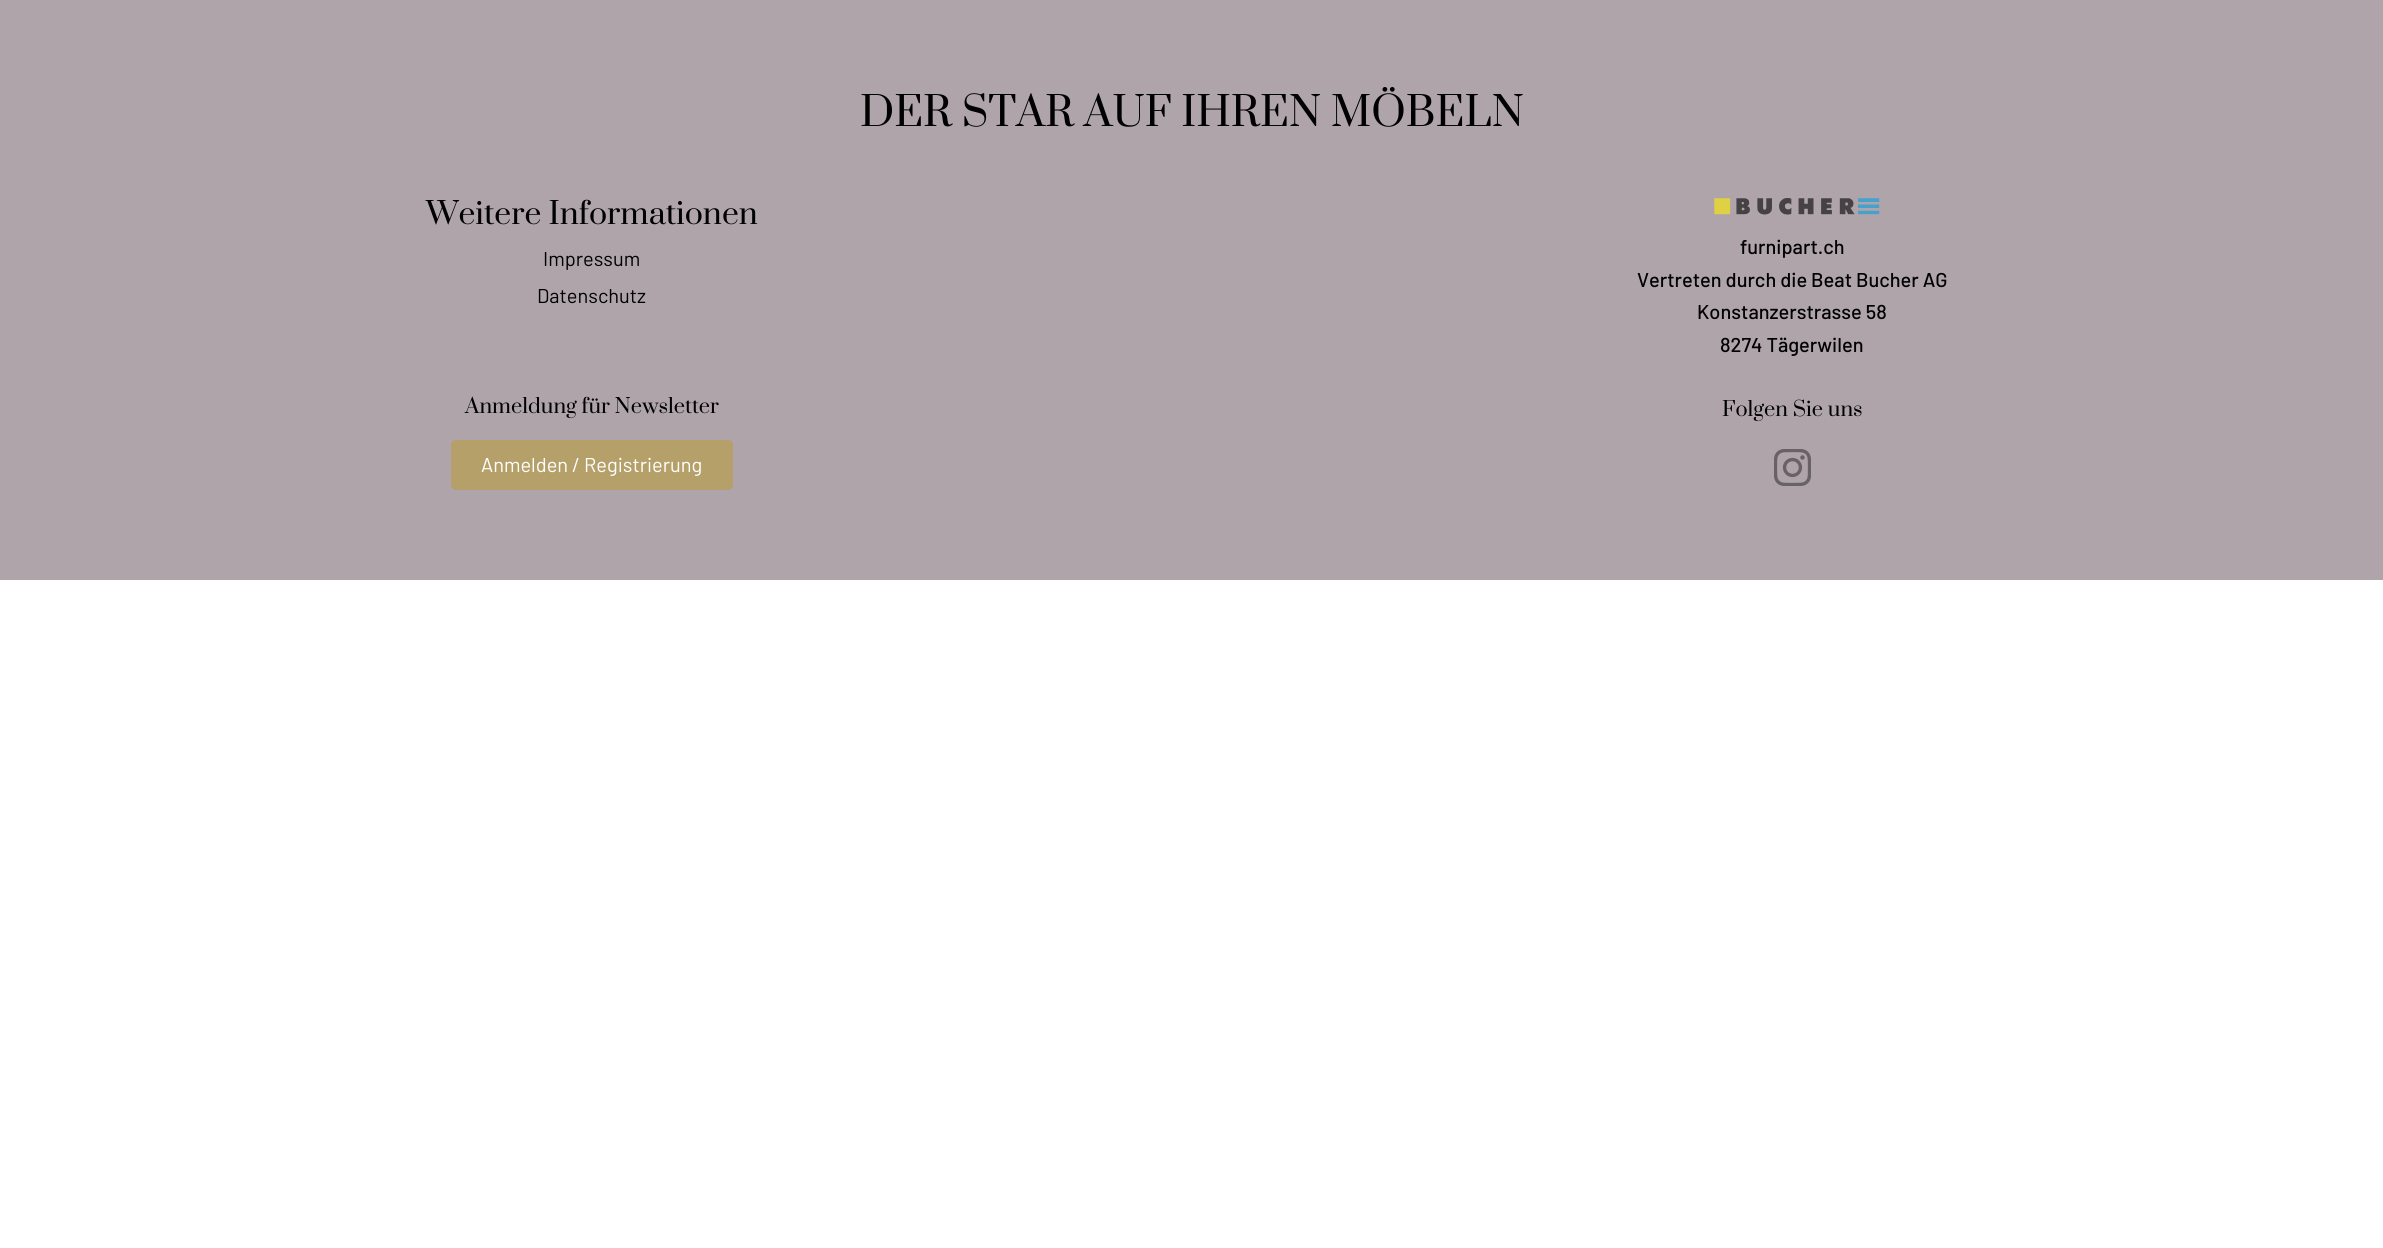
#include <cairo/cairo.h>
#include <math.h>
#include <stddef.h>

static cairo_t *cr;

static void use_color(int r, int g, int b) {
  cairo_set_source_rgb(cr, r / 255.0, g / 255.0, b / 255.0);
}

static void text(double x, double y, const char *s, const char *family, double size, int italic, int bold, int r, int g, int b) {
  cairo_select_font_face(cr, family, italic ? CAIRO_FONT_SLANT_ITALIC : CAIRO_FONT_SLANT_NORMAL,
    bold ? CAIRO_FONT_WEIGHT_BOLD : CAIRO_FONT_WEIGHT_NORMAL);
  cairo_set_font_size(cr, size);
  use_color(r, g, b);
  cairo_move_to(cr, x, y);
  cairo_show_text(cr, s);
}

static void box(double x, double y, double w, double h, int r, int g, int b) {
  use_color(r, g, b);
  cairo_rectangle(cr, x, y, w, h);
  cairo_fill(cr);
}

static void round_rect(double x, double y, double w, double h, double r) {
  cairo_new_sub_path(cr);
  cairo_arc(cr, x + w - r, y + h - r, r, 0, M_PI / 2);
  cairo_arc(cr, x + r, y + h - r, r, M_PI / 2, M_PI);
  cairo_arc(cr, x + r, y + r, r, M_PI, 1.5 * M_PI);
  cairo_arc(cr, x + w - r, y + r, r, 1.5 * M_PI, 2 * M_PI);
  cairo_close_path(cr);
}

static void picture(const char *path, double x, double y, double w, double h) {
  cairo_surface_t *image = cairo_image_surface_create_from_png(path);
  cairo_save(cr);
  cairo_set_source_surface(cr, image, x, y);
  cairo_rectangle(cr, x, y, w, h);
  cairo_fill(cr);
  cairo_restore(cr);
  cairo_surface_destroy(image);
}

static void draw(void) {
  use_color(255, 255, 255);
  cairo_paint(cr);
  box(0, 0, 2383, 580, 174, 164, 170);
  picture("img_01.png", 1714, 198, 166, 17);
  use_color(181, 160, 105);
  round_rect(451, 440, 282, 50, 5);
  cairo_fill(cr);
  picture("img_02.png", 1774, 449, 37, 37);
  text(860, 126, "DER STAR AUF IHREN MÖBELN", "Prata", 40, 0, 0, 0, 0, 0);
  text(426, 224, "Weitere Informationen", "Prata", 30, 0, 0, 0, 0, 0);
  text(543, 266, "Impressum", "Barlow", 20, 0, 0, 0, 0, 0);
  text(537, 303, "Datenschutz", "Barlow", 20, 0, 0, 0, 0, 0);
  text(1740, 254, "furnipart.ch", "Barlow Medium", 20, 0, 0, 0, 0, 0);
  text(1637, 287, "Vertreten durch die Beat Bucher AG", "Barlow Medium", 20, 0, 0, 0, 0, 0);
  text(1697, 319, "Konstanzerstrasse 58", "Barlow Medium", 20, 0, 0, 0, 0, 0);
  text(1720, 352, "8274 Tägerwilen", "Barlow Medium", 20, 0, 0, 0, 0, 0);
  text(465, 413, "Anmeldung für Newsletter", "Prata", 20, 0, 0, 0, 0, 0);
  text(481, 472, "Anmelden / Registrierung", "Barlow", 20, 0, 0, 255, 255, 255);
  text(1722, 416, "Folgen Sie uns", "Prata", 20, 0, 0, 0, 0, 0);
}

int main(void) {
  cairo_surface_t *surface = cairo_image_surface_create(CAIRO_FORMAT_RGB24, 2383, 1248);
  cr = cairo_create(surface);
  cairo_font_options_t *options = cairo_font_options_create();
  cairo_font_options_set_hint_metrics(options, CAIRO_HINT_METRICS_OFF);
  cairo_font_options_set_hint_style(options, CAIRO_HINT_STYLE_NONE);
  cairo_set_font_options(cr, options);
  cairo_set_miter_limit(cr, 4);
  draw();
  cairo_surface_write_to_png(surface, "out.png");
  cairo_font_options_destroy(options);
  cairo_destroy(cr);
  cairo_surface_destroy(surface);
  return 0;
}
